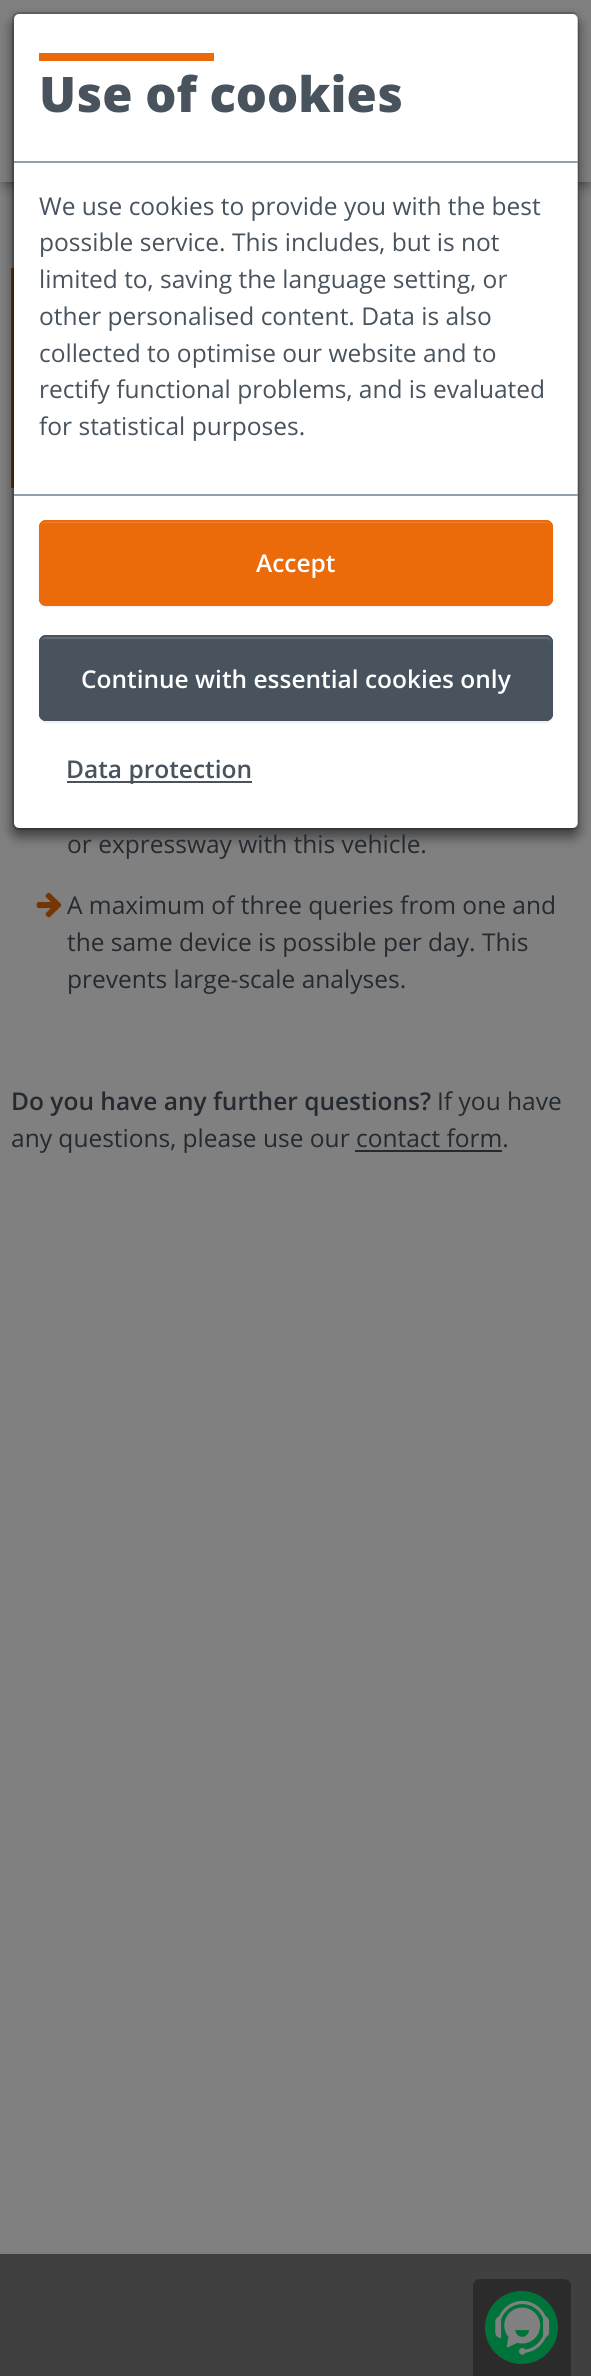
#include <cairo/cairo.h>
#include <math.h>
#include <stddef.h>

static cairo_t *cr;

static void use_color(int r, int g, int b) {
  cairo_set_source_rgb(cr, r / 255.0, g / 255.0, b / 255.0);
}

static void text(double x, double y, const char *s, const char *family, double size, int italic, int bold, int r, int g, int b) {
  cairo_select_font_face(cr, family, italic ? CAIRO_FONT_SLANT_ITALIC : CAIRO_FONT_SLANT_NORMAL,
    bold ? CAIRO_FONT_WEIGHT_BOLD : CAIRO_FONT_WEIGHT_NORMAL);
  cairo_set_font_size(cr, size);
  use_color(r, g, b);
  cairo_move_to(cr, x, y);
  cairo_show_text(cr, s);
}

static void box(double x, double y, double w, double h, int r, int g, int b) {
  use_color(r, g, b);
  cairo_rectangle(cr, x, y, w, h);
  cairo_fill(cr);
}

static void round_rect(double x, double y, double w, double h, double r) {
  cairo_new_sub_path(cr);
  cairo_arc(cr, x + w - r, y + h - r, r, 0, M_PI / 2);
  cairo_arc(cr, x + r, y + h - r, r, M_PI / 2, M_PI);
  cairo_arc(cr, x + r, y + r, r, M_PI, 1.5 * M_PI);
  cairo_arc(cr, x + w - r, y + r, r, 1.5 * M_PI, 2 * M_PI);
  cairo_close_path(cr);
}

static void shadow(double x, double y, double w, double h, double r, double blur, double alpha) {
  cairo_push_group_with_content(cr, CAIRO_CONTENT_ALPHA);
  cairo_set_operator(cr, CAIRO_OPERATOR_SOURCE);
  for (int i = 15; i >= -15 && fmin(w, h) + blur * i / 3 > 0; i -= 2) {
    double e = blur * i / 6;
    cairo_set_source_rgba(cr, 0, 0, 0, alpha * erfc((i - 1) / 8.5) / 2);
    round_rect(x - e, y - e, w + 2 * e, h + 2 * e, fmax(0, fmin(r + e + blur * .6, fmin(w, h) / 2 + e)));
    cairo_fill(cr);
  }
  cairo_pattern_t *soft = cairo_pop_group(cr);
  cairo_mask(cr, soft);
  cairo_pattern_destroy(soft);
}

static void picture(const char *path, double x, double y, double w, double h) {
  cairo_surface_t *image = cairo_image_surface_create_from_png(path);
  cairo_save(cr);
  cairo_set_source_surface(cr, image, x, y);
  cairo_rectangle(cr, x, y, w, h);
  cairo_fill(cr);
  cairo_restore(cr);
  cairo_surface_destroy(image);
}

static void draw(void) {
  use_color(128, 128, 128);
  cairo_paint(cr);
  box(11, 268, 3, 220, 118, 53, 5);
  use_color(0, 0, 0);
  shadow(12, 19, 567, 818, 7, 6, 0.5);
  cairo_save(cr);
  cairo_rectangle(cr, 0, 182, 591, 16);
  cairo_clip(cr);
  use_color(36, 42, 47);
  shadow(7, 12, 579, 170, 0, 8, 1);
  cairo_restore(cr);
  use_color(255, 255, 255);
  round_rect(14, 14, 564, 814, 5);
  cairo_fill(cr);
  round_rect(13, 13, 565, 816, 6);
  cairo_set_source_rgba(cr, 0, 0, 0, 0.2);
  cairo_stroke(cr);
  box(14, 161, 564, 2, 147, 160, 172);
  box(39, 53, 175, 8, 235, 106, 10);
  box(14, 494, 564, 2, 147, 160, 172);
  use_color(0, 0, 0);
  shadow(39, 522, 514, 85, 7, 1, 0.07);
  use_color(235, 106, 10);
  round_rect(39, 520, 514, 86, 7);
  cairo_fill(cr);
  use_color(238, 128, 47);
  cairo_new_path(cr);
  cairo_move_to(cr, 45, 523);
  cairo_line_to(cr, 547, 523);
  cairo_curve_to(cr, 549, 523, 551, 525, 551, 528);
  cairo_curve_to(cr, 551, 525, 551, 522, 547, 522);
  cairo_line_to(cr, 44, 522);
  cairo_curve_to(cr, 40, 522, 40, 525, 40, 528);
  cairo_curve_to(cr, 40, 525, 42, 523, 45, 523);
  cairo_close_path(cr);
  cairo_fill(cr);
  round_rect(40, 521, 512, 84, 6);
  use_color(235, 106, 10);
  cairo_stroke(cr);
  use_color(0, 0, 0);
  shadow(39, 637, 514, 86, 7, 1, 0.07);
  use_color(72, 83, 94);
  round_rect(39, 635, 514, 86, 7);
  cairo_fill(cr);
  use_color(99, 109, 118);
  cairo_new_path(cr);
  cairo_move_to(cr, 45, 639);
  cairo_line_to(cr, 547, 639);
  cairo_curve_to(cr, 549, 639, 551, 641, 551, 643);
  cairo_curve_to(cr, 551, 640, 551, 637, 547, 637);
  cairo_line_to(cr, 44, 637);
  cairo_curve_to(cr, 40, 637, 40, 640, 40, 643);
  cairo_curve_to(cr, 40, 641, 42, 639, 45, 639);
  cairo_close_path(cr);
  cairo_fill(cr);
  round_rect(40, 636, 512, 84, 6);
  use_color(72, 83, 94);
  cairo_stroke(cr);
  box(67, 781, 185, 2, 72, 83, 94);
  picture("img_01.png", 36, 892, 26, 26);
  box(355, 1150, 147, 2, 36, 42, 47);
  box(0, 2254, 591, 122, 64, 64, 64);
  use_color(43, 43, 43);
  cairo_new_path(cr);
  cairo_move_to(cr, 480, 2279);
  cairo_line_to(cr, 564, 2279);
  cairo_curve_to(cr, 568, 2279, 571, 2282, 571, 2286);
  cairo_line_to(cr, 571, 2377);
  cairo_line_to(cr, 473, 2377);
  cairo_line_to(cr, 473, 2286);
  cairo_curve_to(cr, 473, 2282, 476, 2279, 480, 2279);
  cairo_close_path(cr);
  cairo_fill(cr);
  use_color(0, 115, 59);
  cairo_arc(cr, 521.5, 2327.5, 36.5, 0, 2 * M_PI);
  cairo_fill(cr);
  picture("img_02.png", 495, 2300, 55, 55);
  text(39, 112, "Use of cookies", "Open Sans ExtraBold", 49, 0, 0, 72, 83, 94);
  text(39, 215, "We use cookies to provide you with the best", "Open Sans", 24.5, 0, 0, 72, 83, 94);
  text(39, 251, "possible service. This includes, but is not", "Open Sans", 24.5, 0, 0, 72, 83, 94);
  text(39, 288, "limited to, saving the language setting, or", "Open Sans", 24.5, 0, 0, 72, 83, 94);
  text(39, 325, "other personalised content. Data is also", "Open Sans", 24.5, 0, 0, 72, 83, 94);
  text(39, 362, "collected to optimise our website and to", "Open Sans", 24.5, 0, 0, 72, 83, 94);
  text(39, 398, "rectify functional problems, and is evaluated", "Open Sans", 24.5, 0, 0, 72, 83, 94);
  text(39, 435, "for statistical purposes.", "Open Sans", 24.5, 0, 0, 72, 83, 94);
  text(256, 572, "Accept", "Open Sans SemiBold", 24.5, 0, 0, 255, 255, 255);
  text(81, 688, "Continue with essential cookies only", "Open Sans SemiBold", 24.5, 0, 0, 255, 255, 255);
  text(66, 778, "Data protection", "Open Sans SemiBold", 24.5, 0, 0, 72, 83, 94);
  text(67, 853, "or expressway with this vehicle.", "Open Sans", 24.5, 0, 0, 36, 42, 47);
  text(67, 914, "A maximum of three queries from one and", "Open Sans", 24.5, 0, 0, 36, 42, 47);
  text(67, 951, "the same device is possible per day. This", "Open Sans", 24.5, 0, 0, 36, 42, 47);
  text(67, 988, "prevents large-scale analyses.", "Open Sans", 24.5, 0, 0, 36, 42, 47);
  text(11, 1110, "Do you have any further questions?", "Open Sans SemiBold", 24.5, 0, 0, 36, 42, 47);
  text(437, 1110, "If you have", "Open Sans", 24.5, 0, 0, 36, 42, 47);
  text(11, 1147, "any questions, please use our contact form.", "Open Sans", 24.5, 0, 0, 36, 42, 47);
}

int main(void) {
  cairo_surface_t *surface = cairo_image_surface_create(CAIRO_FORMAT_RGB24, 591, 2376);
  cr = cairo_create(surface);
  cairo_font_options_t *options = cairo_font_options_create();
  cairo_font_options_set_hint_metrics(options, CAIRO_HINT_METRICS_OFF);
  cairo_font_options_set_hint_style(options, CAIRO_HINT_STYLE_NONE);
  cairo_set_font_options(cr, options);
  cairo_set_miter_limit(cr, 4);
  draw();
  cairo_surface_write_to_png(surface, "out.png");
  cairo_font_options_destroy(options);
  cairo_destroy(cr);
  cairo_surface_destroy(surface);
  return 0;
}
